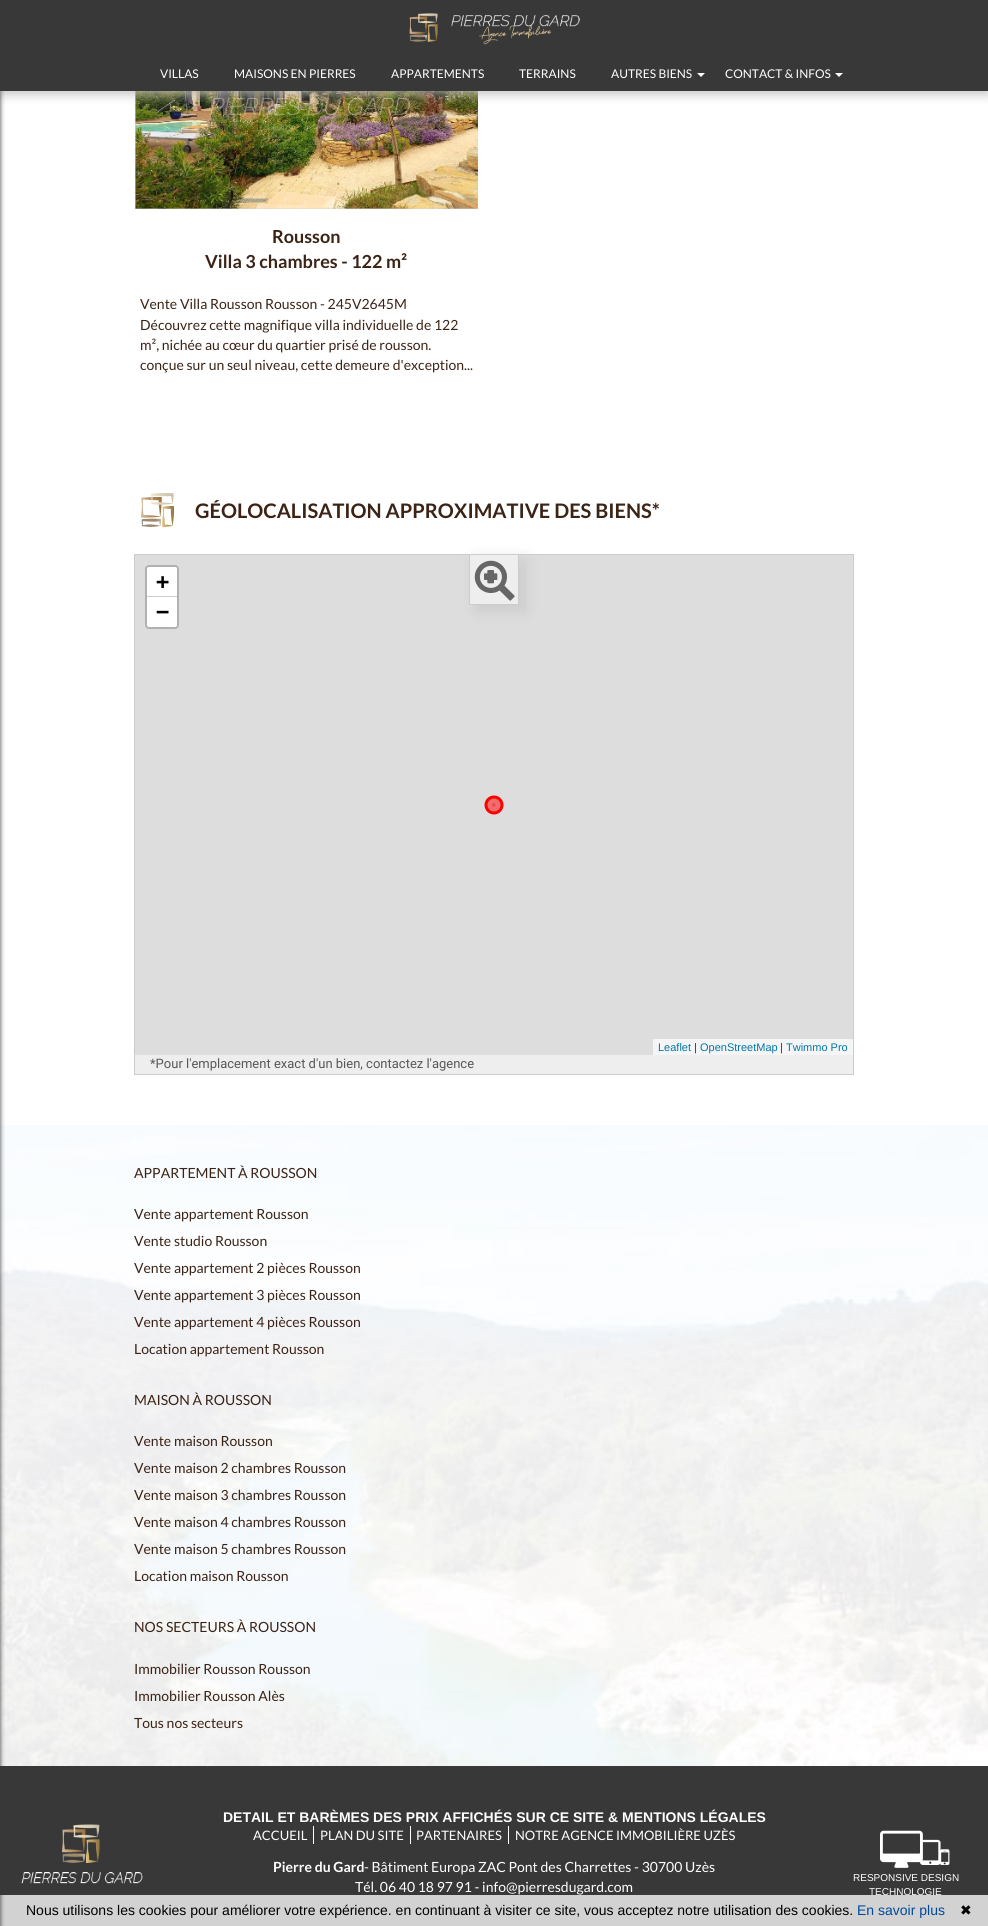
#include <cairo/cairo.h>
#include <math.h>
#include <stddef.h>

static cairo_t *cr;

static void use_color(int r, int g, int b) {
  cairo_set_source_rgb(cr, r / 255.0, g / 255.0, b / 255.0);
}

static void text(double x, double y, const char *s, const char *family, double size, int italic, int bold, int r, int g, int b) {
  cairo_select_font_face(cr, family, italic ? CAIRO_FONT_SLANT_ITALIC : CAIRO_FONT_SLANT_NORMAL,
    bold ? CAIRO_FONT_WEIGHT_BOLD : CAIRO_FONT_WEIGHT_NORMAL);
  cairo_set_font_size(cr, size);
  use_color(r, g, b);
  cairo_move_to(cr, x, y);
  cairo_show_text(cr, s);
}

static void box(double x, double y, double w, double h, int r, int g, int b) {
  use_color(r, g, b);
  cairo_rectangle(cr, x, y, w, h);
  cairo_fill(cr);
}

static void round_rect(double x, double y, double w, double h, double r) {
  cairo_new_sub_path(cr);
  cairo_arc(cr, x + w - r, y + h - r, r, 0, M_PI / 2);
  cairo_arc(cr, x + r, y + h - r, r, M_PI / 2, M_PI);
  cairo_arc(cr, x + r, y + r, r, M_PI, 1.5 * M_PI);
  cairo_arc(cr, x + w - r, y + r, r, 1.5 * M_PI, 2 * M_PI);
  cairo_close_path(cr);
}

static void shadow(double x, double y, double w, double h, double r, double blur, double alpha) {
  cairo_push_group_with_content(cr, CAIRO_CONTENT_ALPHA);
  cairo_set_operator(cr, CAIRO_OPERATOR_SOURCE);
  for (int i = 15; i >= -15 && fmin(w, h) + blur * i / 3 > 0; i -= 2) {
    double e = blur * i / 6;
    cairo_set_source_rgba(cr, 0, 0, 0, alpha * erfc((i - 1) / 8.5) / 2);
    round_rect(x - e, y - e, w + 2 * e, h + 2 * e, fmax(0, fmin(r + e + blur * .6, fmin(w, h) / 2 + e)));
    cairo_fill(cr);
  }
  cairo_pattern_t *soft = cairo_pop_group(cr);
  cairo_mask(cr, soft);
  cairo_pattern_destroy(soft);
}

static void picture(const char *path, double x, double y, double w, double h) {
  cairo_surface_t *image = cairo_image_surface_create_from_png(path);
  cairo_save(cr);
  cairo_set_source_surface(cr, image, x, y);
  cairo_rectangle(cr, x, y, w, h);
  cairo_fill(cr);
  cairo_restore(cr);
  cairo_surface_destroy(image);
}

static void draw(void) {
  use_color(255, 255, 255);
  cairo_paint(cr);
  box(135, 91, 343, 118, 214, 214, 214);
  picture("img_02.png", 135, 91, 343, 118);
  use_color(182, 182, 182);
  shadow(0, 60, 988, 35, 0, 5, 0.75);
  box(0, 0, 988, 91, 56, 56, 57);
  picture("img_01.png", 409, 13, 171, 32);
  use_color(255, 255, 255);
  cairo_new_path(cr);
  cairo_move_to(cr, 697, 73);
  cairo_line_to(cr, 705, 73);
  cairo_line_to(cr, 701, 77);
  cairo_close_path(cr);
  cairo_fill(cr);
  cairo_new_path(cr);
  cairo_move_to(cr, 835, 73);
  cairo_line_to(cr, 843, 73);
  cairo_line_to(cr, 839, 77);
  cairo_close_path(cr);
  cairo_fill(cr);
  picture("img_03.png", 141, 493, 33, 34);
  cairo_rectangle(cr, 134.5, 554.5, 719, 520);
  use_color(204, 204, 204);
  cairo_set_line_width(cr, 1);
  cairo_stroke(cr);
  box(135, 555, 718, 500, 221, 221, 221);
  use_color(204, 204, 204);
  shadow(476, 561, 50, 50, 0, 7.5, 1);
  box(470, 555, 48, 49, 238, 238, 238);
  box(518, 555, 1, 50, 204, 204, 204);
  box(469, 604, 50, 1, 204, 204, 204);
  box(469, 555, 1, 50, 204, 204, 204);
  picture("img_04.png", 474, 560, 41, 41);
  round_rect(146, 566, 32, 62, 3);
  use_color(177, 177, 177);
  cairo_set_line_width(cr, 2);
  cairo_stroke(cr);
  use_color(255, 255, 255);
  cairo_new_path(cr);
  cairo_move_to(cr, 149, 567);
  cairo_line_to(cr, 175, 567);
  cairo_curve_to(cr, 176, 567, 177, 568, 177, 569);
  cairo_line_to(cr, 177, 597);
  cairo_line_to(cr, 147, 597);
  cairo_line_to(cr, 147, 569);
  cairo_curve_to(cr, 147, 568, 148, 567, 149, 567);
  cairo_close_path(cr);
  cairo_fill(cr);
  box(147, 596, 30, 1, 204, 204, 204);
  use_color(255, 255, 255);
  cairo_new_path(cr);
  cairo_move_to(cr, 147, 597);
  cairo_line_to(cr, 177, 597);
  cairo_line_to(cr, 177, 625);
  cairo_curve_to(cr, 177, 626, 176, 627, 175, 627);
  cairo_line_to(cr, 149, 627);
  cairo_curve_to(cr, 148, 627, 147, 626, 147, 625);
  cairo_close_path(cr);
  cairo_fill(cr);
  box(653, 1039, 200, 16, 245, 245, 245);
  picture("img_05.png", 484, 795, 20, 20);
  box(135, 1055, 718, 19, 238, 238, 238);
  picture("img_06.png", 0, 1125, 988, 641);
  box(0, 1766, 988, 129, 56, 56, 57);
  picture("img_07.png", 21, 1824, 122, 60);
  box(313, 1826, 1, 18, 255, 255, 255);
  box(410, 1826, 1, 18, 255, 255, 255);
  box(508, 1826, 1, 18, 255, 255, 255);
  picture("img_08.png", 880, 1830, 43, 38);
  picture("img_09.png", 920, 1839, 21, 26);
  picture("img_10.png", 940, 1849, 10, 16);
  text(160, 78, "VILLAS", "Lato", 12, 0, 0, 255, 255, 255);
  text(234, 78, "MAISONS EN PIERRES", "Lato", 12, 0, 0, 255, 255, 255);
  text(391, 78, "APPARTEMENTS", "Lato", 12, 0, 0, 255, 255, 255);
  text(519, 78, "TERRAINS", "Lato", 12, 0, 0, 255, 255, 255);
  text(611, 78, "AUTRES BIENS", "Lato", 12, 0, 0, 255, 255, 255);
  text(725, 78, "CONTACT & INFOS", "Lato", 12, 0, 0, 255, 255, 255);
  text(272, 243, "Rousson", "Lato", 18, 0, 1, 59, 35, 22);
  text(205, 268, "Villa 3 chambres - 122 m²", "Lato", 18, 0, 1, 59, 35, 22);
  text(140, 309, "Vente Villa Rousson Rousson - 245V2645M", "Lato", 14, 0, 0, 59, 35, 22);
  text(140, 330, "Découvrez cette magnifique villa individuelle de 122", "Lato", 14, 0, 0, 59, 35, 22);
  text(140, 350, "m², nichée au cœur du quartier prisé de rousson.", "Lato", 14, 0, 0, 59, 35, 22);
  text(140, 370, "conçue sur un seul niveau, cette demeure d'exception...", "Lato", 14, 0, 0, 59, 35, 22);
  text(195, 518, "GÉOLOCALISATION APPROXIMATIVE DES BIENS*", "Lato", 20, 0, 1, 59, 35, 22);
  text(156, 589, "+", "DejaVu Sans Mono", 22, 0, 1, 0, 0, 0);
  text(156, 619, "−", "DejaVu Sans Mono", 22, 0, 1, 0, 0, 0);
  text(658, 1051, "Leaflet", "Liberation Sans", 11, 0, 0, 0, 120, 168);
  text(694, 1051, "|", "Liberation Sans", 11, 0, 0, 51, 51, 51);
  text(700, 1051, "OpenStreetMap", "Liberation Sans", 11, 0, 0, 0, 120, 168);
  text(780, 1051, "|", "Liberation Sans", 11, 0, 0, 51, 51, 51);
  text(786, 1051, "Twimmo Pro", "Liberation Sans", 11, 0, 0, 0, 120, 168);
  text(150, 1068, "*Pour l'emplacement exact d'un bien, contactez l'agence", "Roboto", 13, 0, 0, 88, 88, 88);
  text(134, 1178, "APPARTEMENT À ROUSSON", "Lato", 14, 0, 0, 59, 35, 22);
  text(134, 1219, "Vente appartement Rousson", "Lato", 14, 0, 0, 59, 35, 22);
  text(134, 1246, "Vente studio Rousson", "Lato", 14, 0, 0, 59, 35, 22);
  text(134, 1273, "Vente appartement 2 pièces Rousson", "Lato", 14, 0, 0, 59, 35, 22);
  text(134, 1300, "Vente appartement 3 pièces Rousson", "Lato", 14, 0, 0, 59, 35, 22);
  text(134, 1327, "Vente appartement 4 pièces Rousson", "Lato", 14, 0, 0, 59, 35, 22);
  text(134, 1354, "Location appartement Rousson", "Lato", 14, 0, 0, 59, 35, 22);
  text(134, 1405, "MAISON À ROUSSON", "Lato", 14, 0, 0, 59, 35, 22);
  text(134, 1446, "Vente maison Rousson", "Lato", 14, 0, 0, 59, 35, 22);
  text(134, 1473, "Vente maison 2 chambres Rousson", "Lato", 14, 0, 0, 59, 35, 22);
  text(134, 1500, "Vente maison 3 chambres Rousson", "Lato", 14, 0, 0, 59, 35, 22);
  text(134, 1527, "Vente maison 4 chambres Rousson", "Lato", 14, 0, 0, 59, 35, 22);
  text(134, 1554, "Vente maison 5 chambres Rousson", "Lato", 14, 0, 0, 59, 35, 22);
  text(134, 1581, "Location maison Rousson", "Lato", 14, 0, 0, 59, 35, 22);
  text(134, 1632, "NOS SECTEURS À ROUSSON", "Lato", 14, 0, 0, 59, 35, 22);
  text(134, 1674, "Immobilier Rousson Rousson", "Lato", 14, 0, 0, 59, 35, 22);
  text(134, 1701, "Immobilier Rousson Alès", "Lato", 14, 0, 0, 59, 35, 22);
  text(134, 1728, "Tous nos secteurs", "Lato", 14, 0, 0, 59, 35, 22);
  text(223, 1822, "DETAIL ET BARÈMES DES PRIX AFFICHÉS SUR CE SITE & MENTIONS LÉGALES", "Liberation Sans", 14, 0, 1, 255, 255, 255);
  text(253, 1840, "ACCUEIL", "Lato", 13, 0, 0, 255, 255, 255);
  text(320, 1840, "PLAN DU SITE", "Lato", 13, 0, 0, 255, 255, 255);
  text(416, 1840, "PARTENAIRES", "Lato", 13, 0, 0, 255, 255, 255);
  text(515, 1840, "NOTRE AGENCE IMMOBILIÈRE UZÈS", "Lato", 13, 0, 0, 255, 255, 255);
  text(273, 1872, "Pierre du Gard", "Lato", 14, 0, 1, 255, 255, 255);
  text(364, 1872, "- Bâtiment Europa ZAC Pont des Charrettes - 30700 Uzès", "Lato", 14, 0, 0, 255, 255, 255);
  text(355, 1892, "Tél. 06 40 18 97 91 - info@pierresdugard.com", "Lato", 14, 0, 0, 255, 255, 255);
  text(853, 1881, "RESPONSIVE DESIGN", "Liberation Sans", 10, 0, 0, 255, 255, 255);
  text(869, 1895, "TECHNOLOGIE", "Liberation Sans", 10, 0, 0, 255, 255, 255);
  box(0, 1895, 988, 31, 210, 210, 210);
  use_color(56, 56, 57);
  shadow(-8, 72, 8, 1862, 0, 2.5, 1);
  text(26, 1915, "Nous utilisons les cookies pour améliorer votre expérience. en continuant à visiter ce site, vous acceptez notre utilisation des cookies.", "Liberation Sans", 14, 0, 0, 0, 0, 0);
  text(857, 1915, "En savoir plus", "Liberation Sans", 14, 0, 0, 0, 74, 156);
  text(960, 1915, "✖", "DejaVu Sans", 14, 0, 0, 0, 0, 0);
}

int main(void) {
  cairo_surface_t *surface = cairo_image_surface_create(CAIRO_FORMAT_RGB24, 988, 1926);
  cr = cairo_create(surface);
  cairo_font_options_t *options = cairo_font_options_create();
  cairo_font_options_set_hint_metrics(options, CAIRO_HINT_METRICS_OFF);
  cairo_font_options_set_hint_style(options, CAIRO_HINT_STYLE_NONE);
  cairo_set_font_options(cr, options);
  cairo_set_miter_limit(cr, 4);
  draw();
  cairo_surface_write_to_png(surface, "out.png");
  cairo_font_options_destroy(options);
  cairo_destroy(cr);
  cairo_surface_destroy(surface);
  return 0;
}
